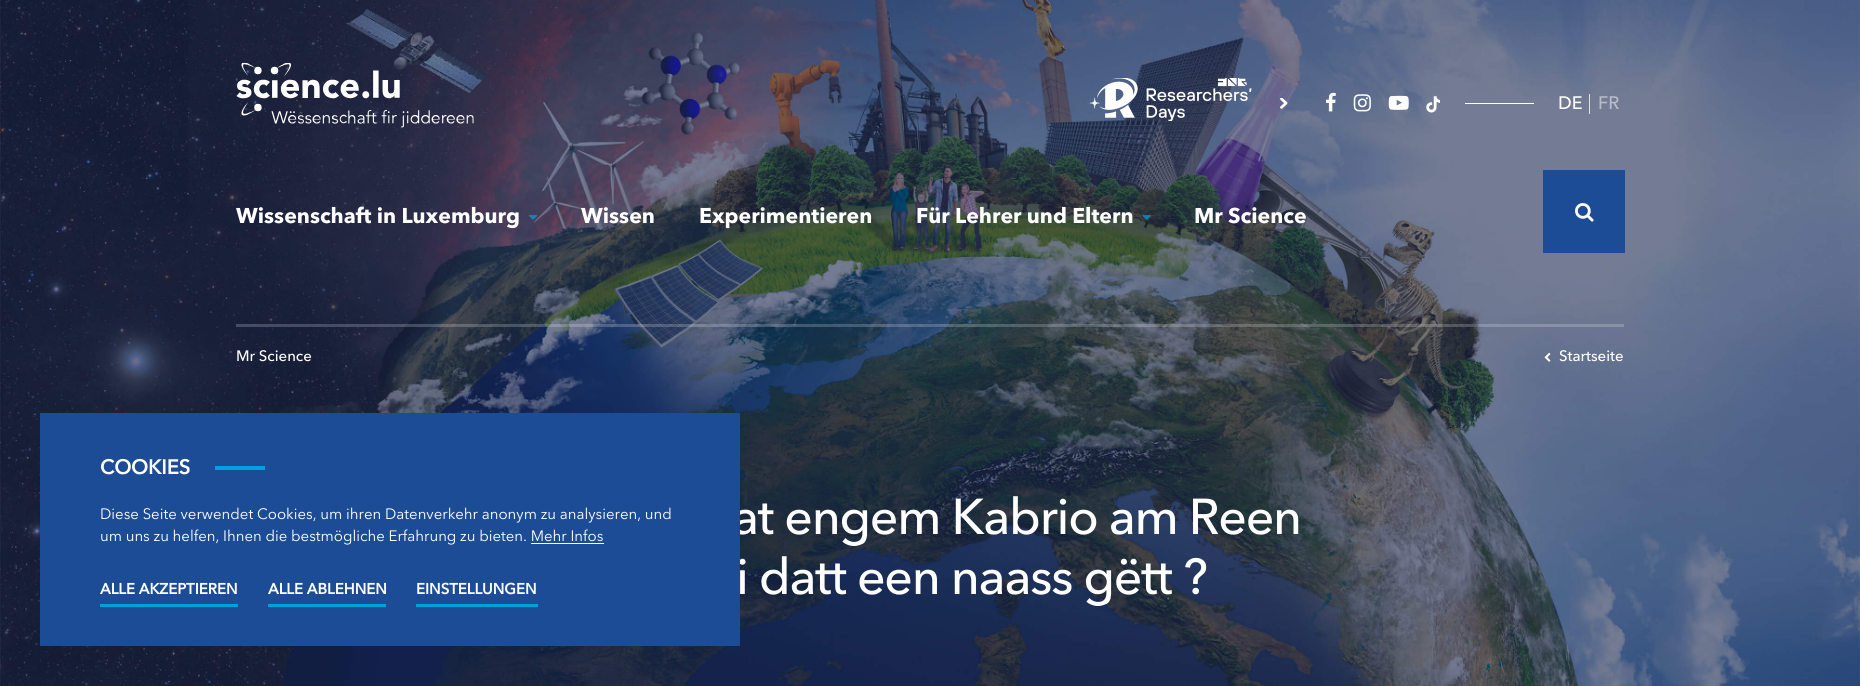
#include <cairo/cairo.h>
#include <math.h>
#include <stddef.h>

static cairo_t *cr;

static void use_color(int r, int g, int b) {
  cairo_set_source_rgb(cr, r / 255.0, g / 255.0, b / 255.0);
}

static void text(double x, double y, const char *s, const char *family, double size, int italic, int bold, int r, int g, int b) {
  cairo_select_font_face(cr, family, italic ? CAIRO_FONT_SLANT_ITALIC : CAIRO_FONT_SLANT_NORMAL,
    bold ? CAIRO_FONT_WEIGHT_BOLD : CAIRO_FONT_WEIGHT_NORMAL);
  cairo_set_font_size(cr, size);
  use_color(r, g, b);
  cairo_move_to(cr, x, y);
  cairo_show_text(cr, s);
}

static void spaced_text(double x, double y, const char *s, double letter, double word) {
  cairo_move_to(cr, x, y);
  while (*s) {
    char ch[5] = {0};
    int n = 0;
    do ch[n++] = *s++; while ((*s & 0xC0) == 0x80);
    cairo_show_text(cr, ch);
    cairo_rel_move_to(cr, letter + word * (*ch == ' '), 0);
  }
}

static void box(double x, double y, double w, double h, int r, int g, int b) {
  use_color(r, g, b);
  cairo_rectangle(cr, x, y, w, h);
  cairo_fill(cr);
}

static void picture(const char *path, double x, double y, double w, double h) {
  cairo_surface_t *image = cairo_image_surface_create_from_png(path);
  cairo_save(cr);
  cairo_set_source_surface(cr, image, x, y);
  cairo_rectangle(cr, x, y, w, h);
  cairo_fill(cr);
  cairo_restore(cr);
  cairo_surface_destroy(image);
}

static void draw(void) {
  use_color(255, 255, 255);
  cairo_paint(cr);
  picture("img_01.png", 0, 0, 1860, 686);
  picture("img_02.png", 236, 63, 238, 65);
  picture("img_03.png", 1089, 78, 163, 43);
  picture("img_04.png", 1280, 98, 8, 11);
  picture("img_05.png", 1326, 92, 10, 20);
  picture("img_06.png", 1353, 94, 18, 18);
  picture("img_07.png", 1388, 95, 21, 15);
  picture("img_08.png", 1426, 96, 14, 17);
  box(1465, 103, 69, 1, 255, 255, 255);
  box(1589, 94, 1, 20, 222, 226, 230);
  box(1543, 170, 82, 83, 29, 76, 151);
  picture("img_09.png", 1575, 203, 19, 19);
  picture("img_10.png", 528, 215, 10, 5);
  picture("img_11.png", 1142, 215, 9, 5);
  cairo_set_source_rgba(cr, 1, 1, 1, 0.2);
  cairo_rectangle(cr, 236, 324, 1388, 3);
  cairo_fill(cr);
  picture("img_12.png", 1544, 352, 7, 10);
  text(1558, 109, "DE", "Avenir Next Medium", 18, 0, 0, 255, 255, 255);
  text(1598, 109, "FR", "Avenir Next Medium", 18, 0, 0, 185, 189, 202);
  text(236, 223, "Wissenschaft in Luxemburg", "Avenir Next", 21.25, 0, 1, 255, 255, 255);
  text(581, 223, "Wissen", "Avenir Next", 21.25, 0, 1, 255, 255, 255);
  text(699, 223, "Experimentieren", "Avenir Next", 21.25, 0, 1, 255, 255, 255);
  text(916, 223, "Für Lehrer und Eltern", "Avenir Next", 21.25, 0, 1, 255, 255, 255);
  text(1194, 223, "Mr Science", "Avenir Next", 21.25, 0, 1, 255, 255, 255);
  text(236, 361, "Mr Science", "Avenir Next Medium", 15, 0, 0, 255, 255, 255);
  text(1559, 361, "Startseite", "Avenir Next Medium", 15, 0, 0, 255, 255, 255);
  cairo_set_font_size(cr, 50);
  spaced_text(732, 534, "at engem Kabrio am Reen", -1.25, 0);
  spaced_text(736, 594, "i datt een naass gëtt ?", -1.25, 0);
  box(40, 413, 700, 233, 29, 76, 151);
  text(100, 474, "COOKIES", "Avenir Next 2", 20, 0, 1, 255, 255, 255);
  box(215, 466, 50, 4, 0, 161, 222);
  text(100, 519, "Diese Seite verwendet Cookies, um ihren Datenverkehr anonym zu analysieren, und", "Avenir Next", 15, 0, 0, 255, 255, 255);
  text(100, 541, "um uns zu helfen, Ihnen die bestmögliche Erfahrung zu bieten. Mehr Infos", "Avenir Next", 15, 0, 0, 255, 255, 255);
  box(531, 543, 73, 1, 255, 255, 255);
  box(100, 604, 138, 3, 0, 161, 222);
  text(100, 594, "ALLE AKZEPTIEREN", "Avenir Next 2", 15, 0, 1, 255, 255, 255);
  box(268, 604, 118, 3, 0, 161, 222);
  text(268, 594, "ALLE ABLEHNEN", "Avenir Next 2", 15, 0, 1, 255, 255, 255);
  box(416, 604, 122, 3, 0, 161, 222);
  text(416, 594, "EINSTELLUNGEN", "Avenir Next 2", 15, 0, 1, 255, 255, 255);
}

int main(void) {
  cairo_surface_t *surface = cairo_image_surface_create(CAIRO_FORMAT_RGB24, 1860, 686);
  cr = cairo_create(surface);
  cairo_font_options_t *options = cairo_font_options_create();
  cairo_font_options_set_hint_metrics(options, CAIRO_HINT_METRICS_OFF);
  cairo_font_options_set_hint_style(options, CAIRO_HINT_STYLE_NONE);
  cairo_set_font_options(cr, options);
  cairo_set_miter_limit(cr, 4);
  draw();
  cairo_surface_write_to_png(surface, "out.png");
  cairo_font_options_destroy(options);
  cairo_destroy(cr);
  cairo_surface_destroy(surface);
  return 0;
}
